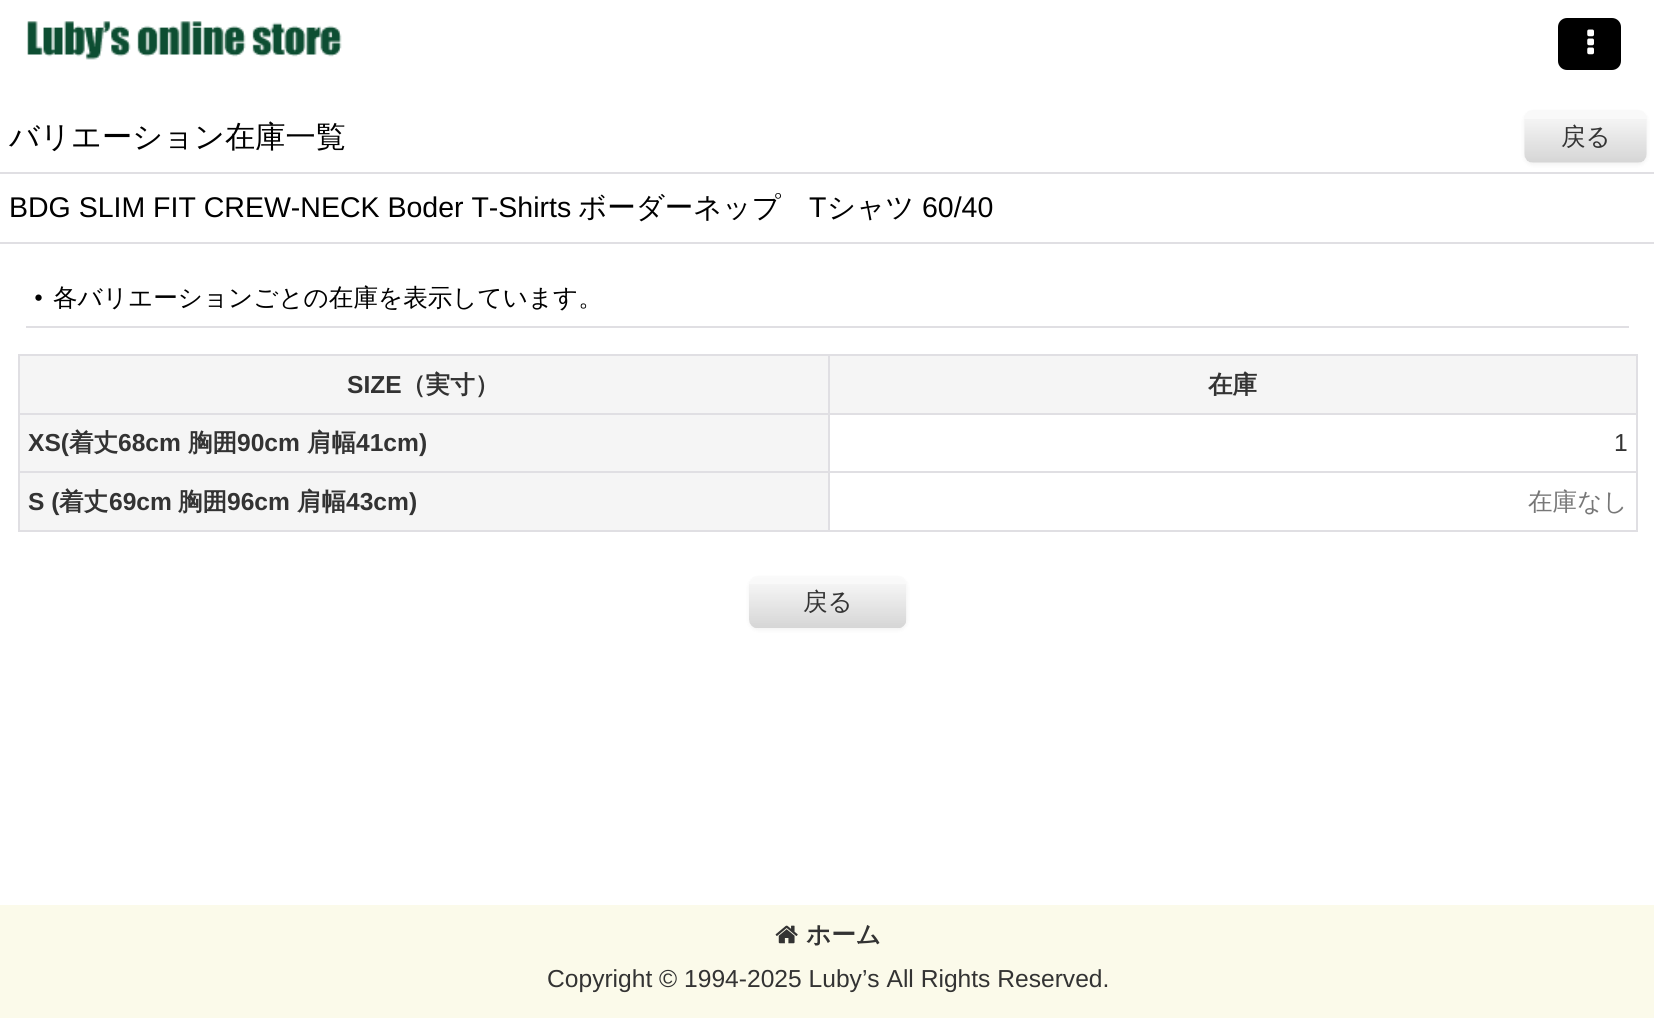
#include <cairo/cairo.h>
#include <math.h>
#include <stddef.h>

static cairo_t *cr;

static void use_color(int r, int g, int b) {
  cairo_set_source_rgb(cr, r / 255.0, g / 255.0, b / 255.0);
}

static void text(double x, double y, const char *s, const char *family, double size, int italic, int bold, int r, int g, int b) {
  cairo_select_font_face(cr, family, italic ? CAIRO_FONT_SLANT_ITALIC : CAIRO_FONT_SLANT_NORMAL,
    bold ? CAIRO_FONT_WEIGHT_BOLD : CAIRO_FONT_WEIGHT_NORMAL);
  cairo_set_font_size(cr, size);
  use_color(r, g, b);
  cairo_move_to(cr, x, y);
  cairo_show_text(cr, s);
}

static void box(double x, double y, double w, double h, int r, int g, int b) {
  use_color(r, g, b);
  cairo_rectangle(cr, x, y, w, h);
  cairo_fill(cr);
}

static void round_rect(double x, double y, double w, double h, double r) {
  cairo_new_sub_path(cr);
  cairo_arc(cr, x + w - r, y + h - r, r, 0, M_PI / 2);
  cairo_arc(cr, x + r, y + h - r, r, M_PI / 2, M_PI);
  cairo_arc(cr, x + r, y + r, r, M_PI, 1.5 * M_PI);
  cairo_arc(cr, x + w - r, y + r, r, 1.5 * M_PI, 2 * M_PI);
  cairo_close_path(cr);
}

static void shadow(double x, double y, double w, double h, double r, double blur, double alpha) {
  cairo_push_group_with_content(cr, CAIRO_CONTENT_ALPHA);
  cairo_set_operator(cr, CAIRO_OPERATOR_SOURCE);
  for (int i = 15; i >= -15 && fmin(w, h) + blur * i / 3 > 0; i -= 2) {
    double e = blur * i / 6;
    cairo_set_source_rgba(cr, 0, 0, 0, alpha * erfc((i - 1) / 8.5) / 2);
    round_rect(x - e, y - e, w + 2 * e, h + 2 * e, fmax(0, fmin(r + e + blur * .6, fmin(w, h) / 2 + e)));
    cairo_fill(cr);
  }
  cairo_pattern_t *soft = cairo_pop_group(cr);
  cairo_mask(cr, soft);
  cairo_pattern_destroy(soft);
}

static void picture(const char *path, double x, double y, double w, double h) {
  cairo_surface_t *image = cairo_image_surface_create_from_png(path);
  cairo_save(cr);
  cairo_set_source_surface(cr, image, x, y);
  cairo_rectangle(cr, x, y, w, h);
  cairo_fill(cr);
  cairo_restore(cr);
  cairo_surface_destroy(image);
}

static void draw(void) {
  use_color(255, 255, 255);
  cairo_paint(cr);
  picture("img_01.png", 27, 21, 315, 39);
  use_color(0, 0, 0);
  round_rect(1558, 18, 63, 52, 9);
  cairo_fill(cr);
  picture("img_02.png", 1587, 29, 7, 26);
  box(0, 172, 1654, 2, 224, 223, 227);
  use_color(0, 0, 0);
  shadow(1524, 112, 123, 53, 9, 2, 0.05);
  use_color(249, 249, 249);
  round_rect(1524, 110, 123, 53, 9);
  cairo_fill(cr);
  picture("img_03.png", 1524, 119, 123, 44);
  box(0, 242, 1654, 2, 224, 223, 227);
  box(26, 326, 1603, 2, 224, 223, 227);
  picture("img_04.png", 35, 294, 7, 7);
  box(20, 356, 808, 57, 245, 245, 245);
  box(828, 354, 810, 2, 224, 223, 227);
  box(828, 413, 810, 2, 224, 223, 227);
  box(828, 471, 810, 2, 224, 223, 227);
  box(1636, 471, 2, 61, 224, 223, 227);
  box(828, 530, 810, 2, 224, 223, 227);
  box(828, 471, 2, 61, 224, 223, 227);
  box(18, 471, 812, 2, 224, 223, 227);
  box(828, 413, 2, 60, 224, 223, 227);
  box(18, 413, 812, 2, 224, 223, 227);
  box(828, 354, 2, 61, 224, 223, 227);
  box(18, 354, 812, 2, 224, 223, 227);
  box(18, 530, 812, 2, 224, 223, 227);
  box(18, 471, 2, 61, 224, 223, 227);
  box(18, 413, 2, 60, 224, 223, 227);
  box(18, 354, 2, 61, 224, 223, 227);
  box(830, 356, 806, 57, 245, 245, 245);
  box(1636, 413, 2, 60, 224, 223, 227);
  box(1636, 354, 2, 61, 224, 223, 227);
  box(20, 415, 808, 56, 245, 245, 245);
  box(20, 473, 808, 57, 245, 245, 245);
  use_color(0, 0, 0);
  shadow(749, 578, 158, 52, 9, 2, 0.05);
  use_color(249, 249, 249);
  round_rect(749, 576, 158, 52, 9);
  cairo_fill(cr);
  picture("img_05.png", 749, 584, 158, 44);
  cairo_set_source_rgba(cr, 1, 1, 1, 0.2);
  cairo_new_path(cr);
  cairo_move_to(cr, 758, 578);
  cairo_line_to(cr, 898, 578);
  cairo_curve_to(cr, 909, 578, 906, 591, 906, 598);
  cairo_line_to(cr, 906, 624);
  cairo_curve_to(cr, 907, 622, 907, 621, 907, 619);
  cairo_line_to(cr, 907, 585);
  cairo_curve_to(cr, 907, 580, 903, 576, 898, 576);
  cairo_line_to(cr, 758, 576);
  cairo_curve_to(cr, 753, 576, 749, 580, 749, 585);
  cairo_line_to(cr, 749, 586);
  cairo_curve_to(cr, 749, 581, 753, 578, 758, 578);
  cairo_close_path(cr);
  cairo_fill(cr);
  box(0, 905, 1654, 113, 251, 250, 234);
  picture("img_06.png", 775, 925, 23, 19);
  text(9, 147, "バリエーション在庫一覧", "WenQuanYi Zen Hei Medium", 30.25, 0, 0, 0, 0, 0);
  text(1561, 145, "戻る", "WenQuanYi Zen Hei Medium", 24.6, 0, 0, 51, 51, 51);
  text(9, 217, "BDG SLIM FIT CREW-NECK Boder T-Shirts", "Liberation Sans", 28.5, 0, 0, 0, 0, 0);
  text(578, 217, "ボーダーネップ", "WenQuanYi Zen Hei Medium", 28.5, 0, 0, 0, 0, 0);
  text(809, 217, "T", "Liberation Sans", 28.5, 0, 0, 0, 0, 0);
  text(827, 217, "シャツ", "WenQuanYi Zen Hei Medium", 28.5, 0, 0, 0, 0, 0);
  text(922, 217, "60/40", "Liberation Sans", 28.5, 0, 0, 0, 0, 0);
  text(53, 306, "各バリエーションごとの在庫を表示しています。", "WenQuanYi Zen Hei Medium", 24.6, 0, 0, 0, 0, 0);
  text(347, 393, "SIZE", "Liberation Sans", 24.6, 0, 1, 51, 51, 51);
  text(401, 393, "（実寸）", "WenQuanYi Zen Hei", 24.6, 0, 1, 51, 51, 51);
  text(1208, 393, "在庫", "WenQuanYi Zen Hei", 24.6, 0, 1, 51, 51, 51);
  text(28, 451, "XS(", "Liberation Sans", 24.6, 0, 1, 51, 51, 51);
  text(69, 451, "着丈", "WenQuanYi Zen Hei", 24.6, 0, 1, 51, 51, 51);
  text(118, 451, "68cm", "Liberation Sans", 24.6, 0, 1, 51, 51, 51);
  text(188, 451, "胸囲", "WenQuanYi Zen Hei", 24.6, 0, 1, 51, 51, 51);
  text(237, 451, "90cm", "Liberation Sans", 24.6, 0, 1, 51, 51, 51);
  text(307, 451, "肩幅", "WenQuanYi Zen Hei", 24.6, 0, 1, 51, 51, 51);
  text(356, 451, "41cm)", "Liberation Sans", 24.6, 0, 1, 51, 51, 51);
  text(1614, 451, "1", "Liberation Sans", 24.6, 0, 0, 51, 51, 51);
  text(28, 510, "S (", "Liberation Sans", 24.6, 0, 1, 51, 51, 51);
  text(59, 510, "着丈", "WenQuanYi Zen Hei", 24.6, 0, 1, 51, 51, 51);
  text(109, 510, "69cm", "Liberation Sans", 24.6, 0, 1, 51, 51, 51);
  text(178, 510, "胸囲", "WenQuanYi Zen Hei", 24.6, 0, 1, 51, 51, 51);
  text(227, 510, "96cm", "Liberation Sans", 24.6, 0, 1, 51, 51, 51);
  text(297, 510, "肩幅", "WenQuanYi Zen Hei", 24.6, 0, 1, 51, 51, 51);
  text(346, 510, "43cm)", "Liberation Sans", 24.6, 0, 1, 51, 51, 51);
  text(1528, 510, "在庫なし", "WenQuanYi Zen Hei Medium", 24.6, 0, 0, 119, 119, 119);
  text(803, 610, "戻る", "WenQuanYi Zen Hei Medium", 24.6, 0, 0, 51, 51, 51);
  text(806, 943, "ホーム", "WenQuanYi Zen Hei", 24.6, 0, 1, 51, 51, 51);
  text(547, 987, "Copyright © 1994-2025 Luby’s All Rights Reserved.", "Liberation Sans", 24.6, 0, 0, 51, 51, 51);
}

int main(void) {
  cairo_surface_t *surface = cairo_image_surface_create(CAIRO_FORMAT_RGB24, 1654, 1018);
  cr = cairo_create(surface);
  cairo_font_options_t *options = cairo_font_options_create();
  cairo_font_options_set_hint_metrics(options, CAIRO_HINT_METRICS_OFF);
  cairo_font_options_set_hint_style(options, CAIRO_HINT_STYLE_NONE);
  cairo_set_font_options(cr, options);
  cairo_set_miter_limit(cr, 4);
  draw();
  cairo_surface_write_to_png(surface, "out.png");
  cairo_font_options_destroy(options);
  cairo_destroy(cr);
  cairo_surface_destroy(surface);
  return 0;
}
